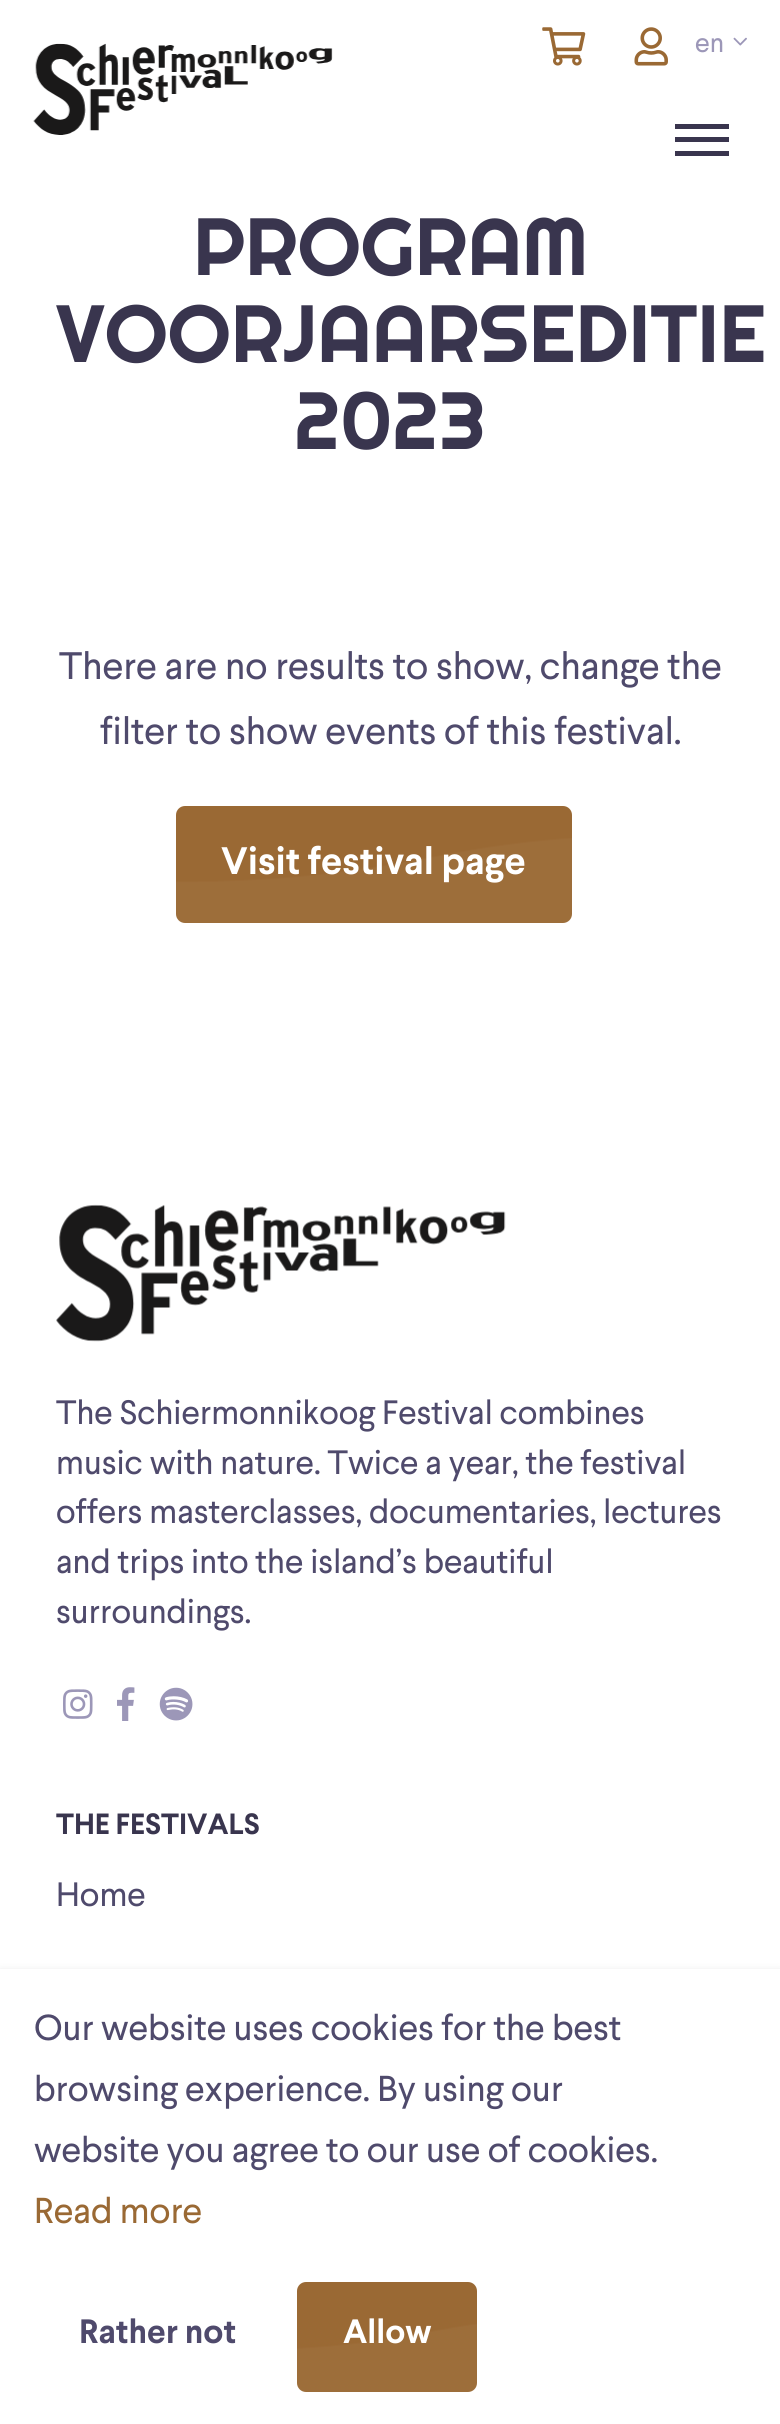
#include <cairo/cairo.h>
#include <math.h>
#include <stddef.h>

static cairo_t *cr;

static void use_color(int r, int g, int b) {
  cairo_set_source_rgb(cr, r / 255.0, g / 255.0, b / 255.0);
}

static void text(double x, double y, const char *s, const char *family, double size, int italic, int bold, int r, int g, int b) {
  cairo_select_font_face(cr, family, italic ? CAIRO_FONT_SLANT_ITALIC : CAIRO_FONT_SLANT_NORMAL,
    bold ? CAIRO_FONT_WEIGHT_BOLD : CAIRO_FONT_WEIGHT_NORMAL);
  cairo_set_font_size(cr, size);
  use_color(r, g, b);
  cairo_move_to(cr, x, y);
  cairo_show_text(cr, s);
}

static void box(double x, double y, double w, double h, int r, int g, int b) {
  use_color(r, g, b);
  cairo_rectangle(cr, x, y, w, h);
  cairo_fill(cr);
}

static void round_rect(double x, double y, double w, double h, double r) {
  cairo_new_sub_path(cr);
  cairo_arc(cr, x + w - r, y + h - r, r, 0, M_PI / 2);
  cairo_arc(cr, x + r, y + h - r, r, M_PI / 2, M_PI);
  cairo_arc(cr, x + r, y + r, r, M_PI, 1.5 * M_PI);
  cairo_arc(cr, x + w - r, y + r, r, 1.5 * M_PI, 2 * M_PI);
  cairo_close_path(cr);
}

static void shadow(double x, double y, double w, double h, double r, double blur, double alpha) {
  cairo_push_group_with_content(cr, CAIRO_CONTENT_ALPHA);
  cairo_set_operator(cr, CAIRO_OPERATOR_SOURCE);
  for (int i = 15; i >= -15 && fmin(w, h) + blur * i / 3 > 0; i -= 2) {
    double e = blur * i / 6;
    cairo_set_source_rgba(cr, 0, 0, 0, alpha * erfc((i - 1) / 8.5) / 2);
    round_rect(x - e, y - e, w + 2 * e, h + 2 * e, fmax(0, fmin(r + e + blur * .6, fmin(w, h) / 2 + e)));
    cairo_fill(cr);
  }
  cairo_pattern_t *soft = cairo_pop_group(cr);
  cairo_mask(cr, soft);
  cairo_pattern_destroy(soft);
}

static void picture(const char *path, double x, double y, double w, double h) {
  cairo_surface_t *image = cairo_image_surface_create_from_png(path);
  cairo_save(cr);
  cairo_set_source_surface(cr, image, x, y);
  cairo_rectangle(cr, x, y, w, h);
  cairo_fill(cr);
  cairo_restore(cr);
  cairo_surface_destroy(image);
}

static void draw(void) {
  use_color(255, 255, 255);
  cairo_paint(cr);
  picture("img_01.png", 33, 43, 300, 92);
  picture("img_02.png", 542, 27, 44, 39);
  picture("img_03.png", 634, 27, 34, 39);
  picture("img_04.png", 733, 37, 14, 9);
  box(675, 137, 54, 5, 57, 53, 78);
  box(675, 124, 54, 5, 57, 53, 78);
  box(675, 151, 54, 5, 57, 53, 78);
  use_color(154, 105, 52);
  round_rect(176, 806, 396, 117, 9);
  cairo_fill(cr);
  picture("img_05.png", 176, 838, 396, 85);
  picture("img_06.png", 56, 1204, 450, 138);
  picture("img_07.png", 63, 1689, 30, 30);
  picture("img_08.png", 117, 1687, 18, 34);
  picture("img_09.png", 159, 1687, 34, 34);
  use_color(0, 0, 0);
  shadow(0, 1973, 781, 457, 0, 4.5, 0.2);
  box(0, 1969, 780, 455, 255, 255, 255);
  use_color(154, 105, 52);
  round_rect(297, 2282, 180, 110, 9);
  cairo_fill(cr);
  picture("img_10.png", 297, 2324, 180, 68);
  text(695, 52, "en", "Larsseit", 27, 0, 0, 156, 151, 184);
  text(193, 275, "PROGRAM", "Righteous", 81, 0, 0, 57, 53, 78);
  text(56, 362, "VOORJAARSEDITIE", "Righteous", 81, 0, 0, 57, 53, 78);
  text(294, 449, "2023", "Righteous", 81, 0, 0, 57, 53, 78);
  text(59, 679, "There are no results to show, change the", "Larsseit", 38.25, 0, 0, 79, 74, 108);
  text(100, 744, "filter to show events of this festival.", "Larsseit", 38.25, 0, 0, 79, 74, 108);
  text(221, 874, "Visit festival page", "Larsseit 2", 38.25, 0, 0, 255, 255, 255);
  text(56, 1424, "The Schiermonnikoog Festival combines", "Larsseit", 33.75, 0, 0, 79, 74, 108);
  text(56, 1474, "music with nature. Twice a year, the festival", "Larsseit", 33.75, 0, 0, 79, 74, 108);
  text(56, 1523, "offers masterclasses, documentaries, lectures", "Larsseit", 33.75, 0, 0, 79, 74, 108);
  text(56, 1573, "and trips into the island’s beautiful", "Larsseit", 33.75, 0, 0, 79, 74, 108);
  text(56, 1623, "surroundings.", "Larsseit", 33.75, 0, 0, 79, 74, 108);
  text(56, 1834, "THE FESTIVALS", "Larsseit 2", 29.25, 0, 0, 57, 53, 78);
  text(56, 1906, "Home", "Larsseit", 33.75, 0, 0, 79, 74, 108);
  text(34, 2040, "Our website uses cookies for the best", "Larsseit", 36, 0, 0, 79, 74, 108);
  text(34, 2101, "browsing experience. By using our", "Larsseit", 36, 0, 0, 79, 74, 108);
  text(34, 2162, "website you agree to our use of cookies.", "Larsseit", 36, 0, 0, 79, 74, 108);
  text(34, 2223, "Read more", "Larsseit", 36, 0, 0, 154, 105, 52);
  text(79, 2343, "Rather not", "Larsseit 2", 33.75, 0, 0, 79, 74, 108);
  text(343, 2343, "Allow", "Larsseit 2", 33.75, 0, 0, 255, 255, 255);
}

int main(void) {
  cairo_surface_t *surface = cairo_image_surface_create(CAIRO_FORMAT_RGB24, 780, 2424);
  cr = cairo_create(surface);
  cairo_font_options_t *options = cairo_font_options_create();
  cairo_font_options_set_hint_metrics(options, CAIRO_HINT_METRICS_OFF);
  cairo_font_options_set_hint_style(options, CAIRO_HINT_STYLE_NONE);
  cairo_set_font_options(cr, options);
  cairo_set_miter_limit(cr, 4);
  draw();
  cairo_surface_write_to_png(surface, "out.png");
  cairo_font_options_destroy(options);
  cairo_destroy(cr);
  cairo_surface_destroy(surface);
  return 0;
}
